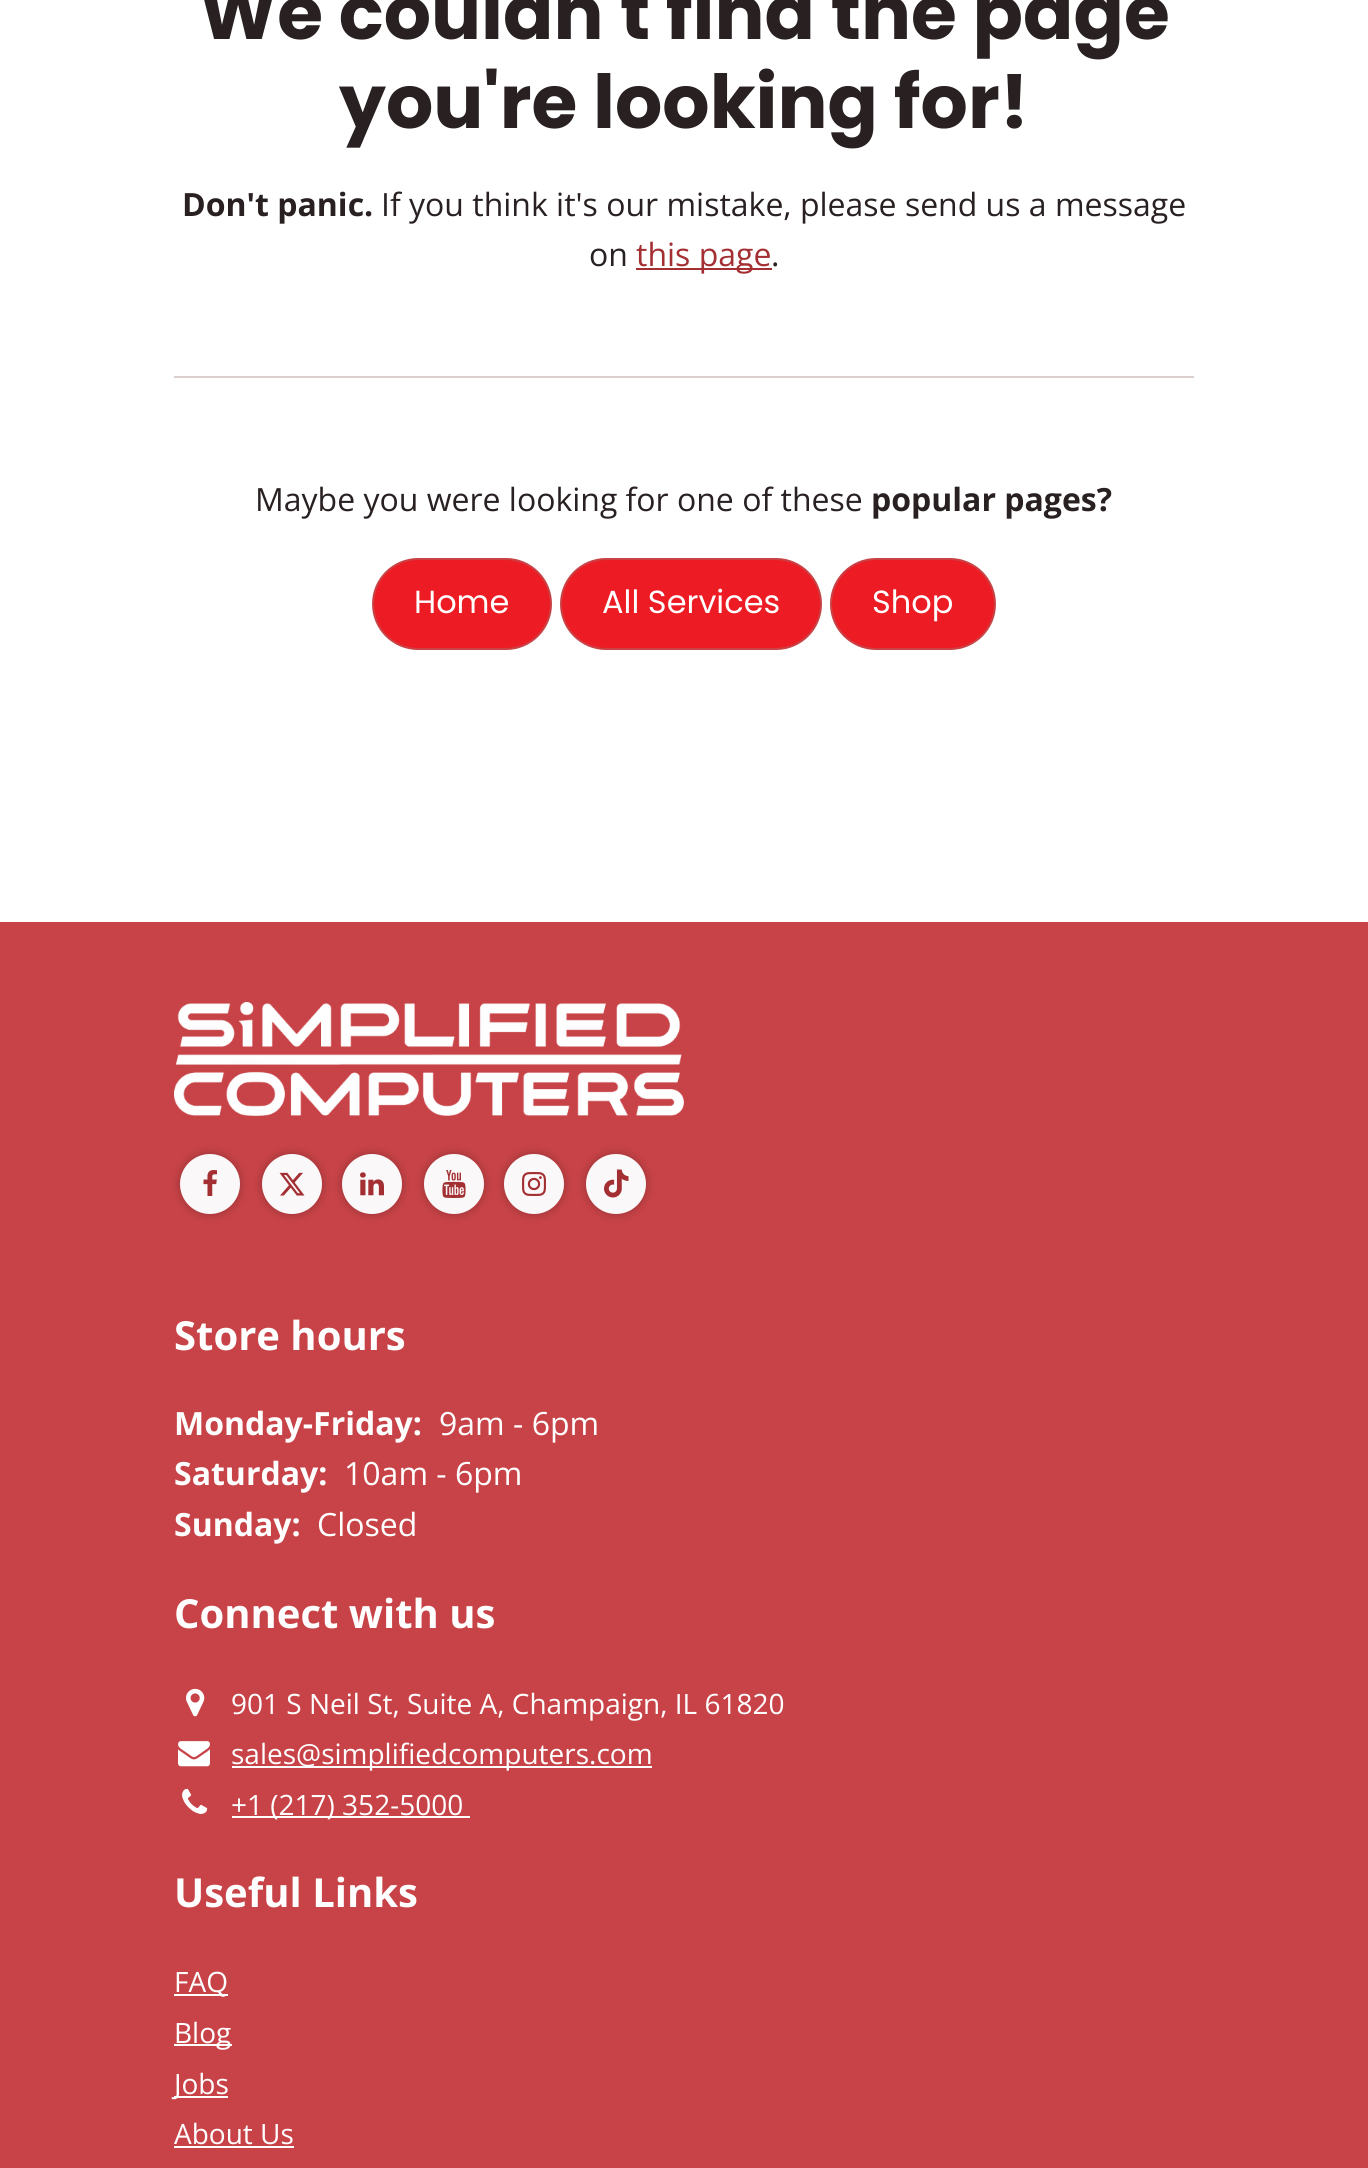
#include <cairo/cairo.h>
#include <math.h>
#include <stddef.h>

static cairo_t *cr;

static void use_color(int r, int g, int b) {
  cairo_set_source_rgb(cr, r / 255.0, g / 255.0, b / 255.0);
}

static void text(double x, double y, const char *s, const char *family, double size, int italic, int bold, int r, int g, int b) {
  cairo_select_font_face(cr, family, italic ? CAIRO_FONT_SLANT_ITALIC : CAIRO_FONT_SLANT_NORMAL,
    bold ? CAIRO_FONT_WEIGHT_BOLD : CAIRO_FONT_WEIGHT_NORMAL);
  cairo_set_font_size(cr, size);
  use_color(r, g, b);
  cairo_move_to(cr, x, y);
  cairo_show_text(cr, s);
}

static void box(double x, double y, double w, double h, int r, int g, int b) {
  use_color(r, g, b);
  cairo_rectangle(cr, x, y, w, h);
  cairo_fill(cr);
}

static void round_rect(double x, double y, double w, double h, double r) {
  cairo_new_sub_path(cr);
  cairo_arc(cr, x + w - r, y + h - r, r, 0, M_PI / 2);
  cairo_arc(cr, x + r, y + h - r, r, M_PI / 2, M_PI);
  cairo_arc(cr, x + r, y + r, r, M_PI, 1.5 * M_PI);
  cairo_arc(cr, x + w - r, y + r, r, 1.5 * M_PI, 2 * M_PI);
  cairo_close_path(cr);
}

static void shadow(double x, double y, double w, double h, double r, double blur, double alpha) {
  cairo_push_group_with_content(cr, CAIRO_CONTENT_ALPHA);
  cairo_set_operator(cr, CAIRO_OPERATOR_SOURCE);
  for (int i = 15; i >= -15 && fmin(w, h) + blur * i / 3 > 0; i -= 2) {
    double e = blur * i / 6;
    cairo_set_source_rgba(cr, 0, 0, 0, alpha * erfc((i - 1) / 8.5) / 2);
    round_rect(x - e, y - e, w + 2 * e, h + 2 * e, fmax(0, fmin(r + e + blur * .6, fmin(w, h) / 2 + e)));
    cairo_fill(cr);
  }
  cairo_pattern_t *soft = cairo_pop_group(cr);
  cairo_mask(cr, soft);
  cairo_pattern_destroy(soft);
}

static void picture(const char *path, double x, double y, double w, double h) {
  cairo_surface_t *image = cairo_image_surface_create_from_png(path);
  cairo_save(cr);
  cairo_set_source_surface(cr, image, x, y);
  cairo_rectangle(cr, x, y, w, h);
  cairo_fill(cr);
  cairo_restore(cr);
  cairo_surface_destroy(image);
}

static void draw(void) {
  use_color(255, 255, 255);
  cairo_paint(cr);
  box(636, 268, 136, 2, 163, 47, 51);
  box(174, 376, 1020, 2, 218, 206, 206);
  use_color(237, 28, 36);
  round_rect(373, 559, 178, 90, 45);
  cairo_fill_preserve(cr);
  use_color(200, 66, 70);
  cairo_stroke(cr);
  use_color(237, 28, 36);
  round_rect(561, 559, 260, 90, 45);
  cairo_fill_preserve(cr);
  use_color(200, 66, 70);
  cairo_stroke(cr);
  use_color(237, 28, 36);
  round_rect(831, 559, 164, 90, 45);
  cairo_fill_preserve(cr);
  use_color(200, 66, 70);
  cairo_stroke(cr);
  box(0, 922, 1368, 1246, 200, 67, 71);
  picture("img_01.png", 174, 1002, 510, 114);
  use_color(0, 0, 0);
  shadow(180, 1154, 60, 60, 30, 5, 0.25);
  use_color(250, 248, 248);
  cairo_arc(cr, 210, 1184, 30, 0, 2 * M_PI);
  cairo_fill(cr);
  picture("img_02.png", 203, 1170, 14, 26);
  use_color(0, 0, 0);
  shadow(262, 1154, 60, 60, 30, 5, 0.25);
  use_color(250, 248, 248);
  cairo_arc(cr, 292, 1184, 30, 0, 2 * M_PI);
  cairo_fill(cr);
  picture("img_03.png", 279, 1172, 26, 24);
  use_color(0, 0, 0);
  shadow(342, 1154, 60, 60, 30, 5, 0.25);
  use_color(250, 248, 248);
  cairo_arc(cr, 372, 1184, 30, 0, 2 * M_PI);
  cairo_fill(cr);
  picture("img_04.png", 360, 1172, 24, 24);
  use_color(0, 0, 0);
  shadow(424, 1154, 60, 60, 30, 5, 0.25);
  use_color(250, 248, 248);
  cairo_arc(cr, 454, 1184, 30, 0, 2 * M_PI);
  cairo_fill(cr);
  picture("img_05.png", 442, 1170, 24, 28);
  use_color(0, 0, 0);
  shadow(504, 1154, 60, 60, 30, 5, 0.25);
  use_color(250, 248, 248);
  cairo_arc(cr, 534, 1184, 30, 0, 2 * M_PI);
  cairo_fill(cr);
  picture("img_06.png", 522, 1172, 24, 24);
  use_color(0, 0, 0);
  shadow(586, 1154, 60, 60, 30, 5, 0.25);
  use_color(250, 248, 248);
  cairo_arc(cr, 616, 1184, 30, 0, 2 * M_PI);
  cairo_fill(cr);
  picture("img_07.png", 604, 1169, 25, 29);
  picture("img_08.png", 186, 1688, 19, 29);
  picture("img_09.png", 178, 1741, 32, 26);
  box(232, 1766, 420, 2, 255, 255, 255);
  picture("img_10.png", 182, 1788, 26, 26);
  box(232, 1816, 238, 2, 255, 255, 255);
  box(174, 1994, 54, 2, 255, 255, 255);
  box(174, 2044, 58, 2, 255, 255, 255);
  box(174, 2096, 54, 2, 255, 255, 255);
  box(174, 2146, 120, 2, 255, 255, 255);
  text(199, 39, "We couldn't find the page", "Poppins", 74.3, 0, 1, 41, 33, 33);
  text(339, 128, "you're looking for!", "Poppins", 74.3, 0, 1, 41, 33, 33);
  text(182, 216, "Don't panic.", "Open Sans", 32, 0, 1, 41, 33, 33);
  text(381, 216, "If you think it's our mistake, please send us a message", "Open Sans", 32, 0, 0, 41, 33, 33);
  text(589, 266, "on", "Open Sans", 32, 0, 0, 41, 33, 33);
  text(636, 266, "this page", "Open Sans", 32, 0, 0, 163, 47, 51);
  text(771, 266, ".", "Open Sans", 32, 0, 0, 41, 33, 33);
  text(255, 511, "Maybe you were looking for one of these", "Open Sans", 32, 0, 0, 41, 33, 33);
  text(871, 511, "popular pages?", "Open Sans", 32, 0, 1, 41, 33, 33);
  text(414, 613, "Home", "Poppins", 32, 0, 0, 255, 255, 255);
  text(602, 613, "All Services", "Poppins", 32, 0, 0, 255, 255, 255);
  text(872, 613, "Shop", "Poppins", 32, 0, 0, 255, 255, 255);
  text(174, 1350, "Store hours", "Open Sans", 40, 0, 1, 255, 255, 255);
  text(174, 1435, "Monday-Friday:", "Open Sans", 32, 0, 1, 255, 255, 255);
  text(439, 1435, "9am - 6pm", "Open Sans", 32, 0, 0, 255, 255, 255);
  text(174, 1485, "Saturday:", "Open Sans", 32, 0, 1, 255, 255, 255);
  text(344, 1485, "10am - 6pm", "Open Sans", 32, 0, 0, 255, 255, 255);
  text(174, 1536, "Sunday:", "Open Sans", 32, 0, 1, 255, 255, 255);
  text(317, 1536, "Closed", "Open Sans", 32, 0, 0, 255, 255, 255);
  text(174, 1628, "Connect with us", "Open Sans", 40, 0, 1, 255, 255, 255);
  text(231, 1714, "901 S Neil St, Suite A, Champaign, IL 61820", "Open Sans", 28, 0, 0, 255, 255, 255);
  text(231, 1764, "sales@simplifiedcomputers.com", "Open Sans", 28, 0, 0, 255, 255, 255);
  text(231, 1815, "+1 (217) 352-5000", "Open Sans", 28, 0, 0, 255, 255, 255);
  text(174, 1907, "Useful Links", "Open Sans", 40, 0, 1, 255, 255, 255);
  text(174, 1992, "FAQ", "Open Sans", 28, 0, 0, 255, 255, 255);
  text(174, 2043, "Blog", "Open Sans", 28, 0, 0, 255, 255, 255);
  text(174, 2094, "Jobs", "Open Sans", 28, 0, 0, 255, 255, 255);
  text(174, 2144, "About Us", "Open Sans", 28, 0, 0, 255, 255, 255);
}

int main(void) {
  cairo_surface_t *surface = cairo_image_surface_create(CAIRO_FORMAT_RGB24, 1368, 2168);
  cr = cairo_create(surface);
  cairo_font_options_t *options = cairo_font_options_create();
  cairo_font_options_set_hint_metrics(options, CAIRO_HINT_METRICS_OFF);
  cairo_font_options_set_hint_style(options, CAIRO_HINT_STYLE_NONE);
  cairo_set_font_options(cr, options);
  cairo_set_miter_limit(cr, 4);
  draw();
  cairo_surface_write_to_png(surface, "out.png");
  cairo_font_options_destroy(options);
  cairo_destroy(cr);
  cairo_surface_destroy(surface);
  return 0;
}
